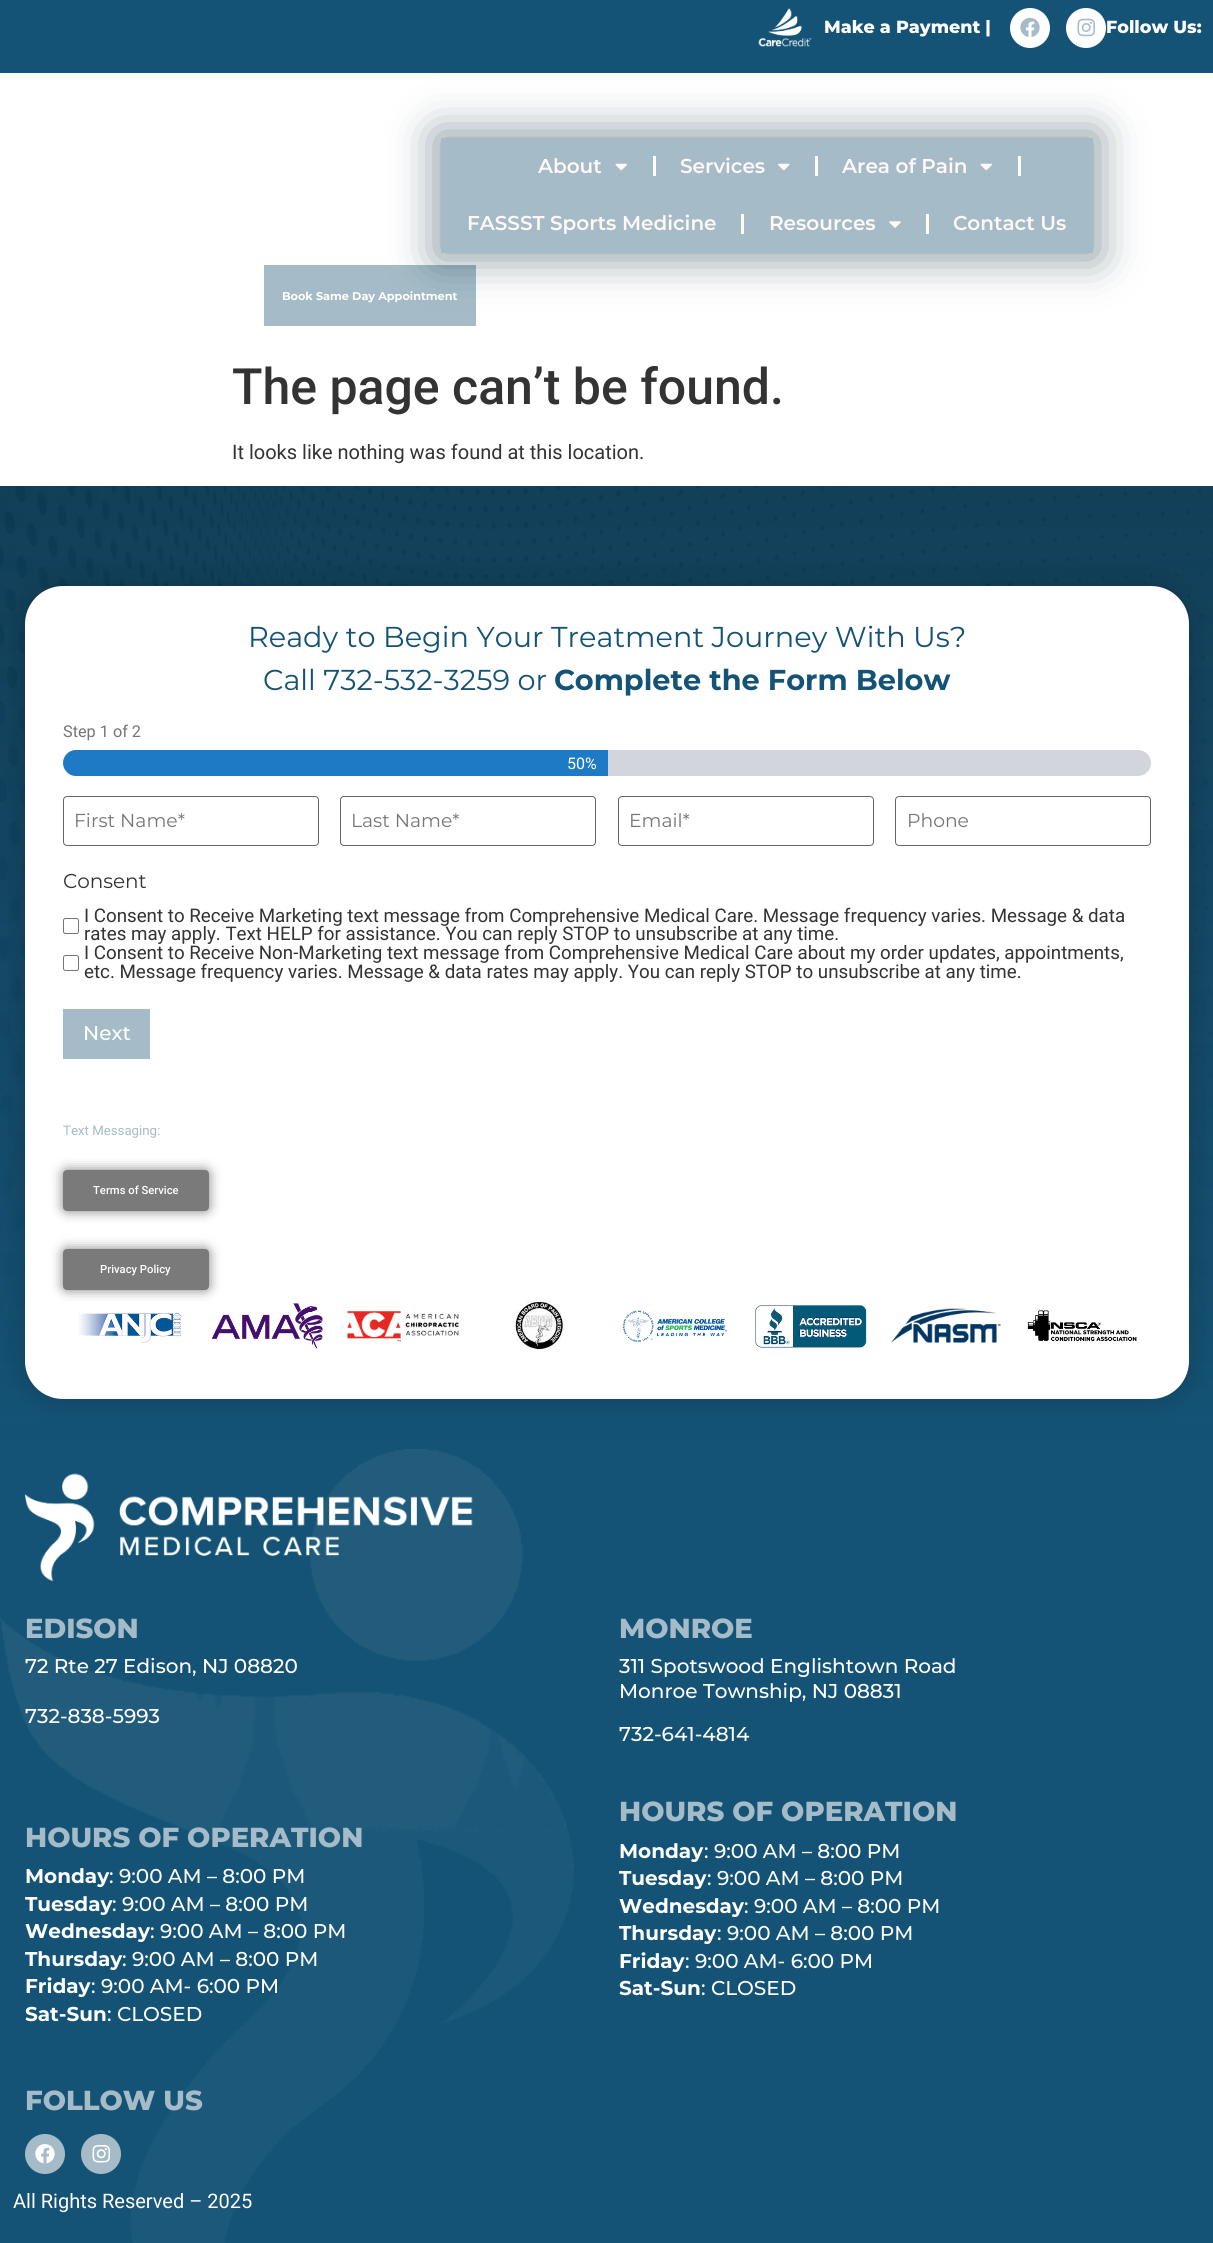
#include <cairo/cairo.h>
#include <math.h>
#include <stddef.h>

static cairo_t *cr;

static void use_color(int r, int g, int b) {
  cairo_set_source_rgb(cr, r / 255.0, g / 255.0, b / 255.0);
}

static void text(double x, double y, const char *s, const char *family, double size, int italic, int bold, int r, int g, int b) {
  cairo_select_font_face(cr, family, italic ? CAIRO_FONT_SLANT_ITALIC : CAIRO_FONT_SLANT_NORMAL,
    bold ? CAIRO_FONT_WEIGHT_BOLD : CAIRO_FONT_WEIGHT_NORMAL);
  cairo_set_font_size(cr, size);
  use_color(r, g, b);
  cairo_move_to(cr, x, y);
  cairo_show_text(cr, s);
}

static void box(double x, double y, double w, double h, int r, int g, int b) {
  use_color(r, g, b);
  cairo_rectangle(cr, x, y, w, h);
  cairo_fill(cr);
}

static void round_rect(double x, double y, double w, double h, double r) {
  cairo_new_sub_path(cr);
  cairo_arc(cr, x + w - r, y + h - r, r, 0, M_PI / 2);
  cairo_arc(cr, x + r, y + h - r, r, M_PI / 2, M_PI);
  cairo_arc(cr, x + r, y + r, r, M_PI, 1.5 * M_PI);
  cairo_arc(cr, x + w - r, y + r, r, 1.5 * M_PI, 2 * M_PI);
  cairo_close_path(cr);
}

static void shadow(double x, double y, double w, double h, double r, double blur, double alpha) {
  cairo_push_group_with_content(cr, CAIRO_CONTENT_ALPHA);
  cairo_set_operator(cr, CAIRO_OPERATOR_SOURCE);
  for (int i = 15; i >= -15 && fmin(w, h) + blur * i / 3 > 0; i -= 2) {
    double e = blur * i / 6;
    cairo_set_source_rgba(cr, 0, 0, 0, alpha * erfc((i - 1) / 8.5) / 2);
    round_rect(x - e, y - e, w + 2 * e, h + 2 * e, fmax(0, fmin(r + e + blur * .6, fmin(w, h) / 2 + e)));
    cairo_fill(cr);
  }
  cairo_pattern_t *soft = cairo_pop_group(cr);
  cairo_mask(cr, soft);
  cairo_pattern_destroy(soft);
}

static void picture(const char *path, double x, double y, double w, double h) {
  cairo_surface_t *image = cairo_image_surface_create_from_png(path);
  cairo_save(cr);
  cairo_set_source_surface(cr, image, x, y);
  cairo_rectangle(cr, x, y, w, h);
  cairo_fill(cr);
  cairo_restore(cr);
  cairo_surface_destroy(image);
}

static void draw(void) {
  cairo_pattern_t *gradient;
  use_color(255, 255, 255);
  cairo_paint(cr);
  box(264, 265, 212, 61, 165, 188, 200);
  use_color(10, 46, 58);
  shadow(436, 133, 662, 125, 0, 22, 0.5);
  box(0, 0, 1213, 73, 20, 83, 118);
  picture("img_01.png", 758, 8, 54, 39);
  use_color(255, 255, 255);
  cairo_arc(cr, 1030, 28, 20, 0, 2 * M_PI);
  cairo_fill(cr);
  picture("img_02.png", 1020, 17, 20, 20);
  cairo_arc(cr, 1086, 28, 20, 0, 2 * M_PI);
  cairo_fill(cr);
  picture("img_03.png", 1077, 18, 18, 19);
  box(441, 138, 652, 115, 165, 188, 200);
  picture("img_04.png", 615, 163, 12, 8);
  box(653, 156, 3, 20, 255, 255, 255);
  picture("img_05.png", 778, 163, 12, 8);
  box(815, 156, 3, 20, 255, 255, 255);
  picture("img_04.png", 980, 163, 12, 8);
  box(1018, 156, 3, 20, 255, 255, 255);
  box(741, 214, 3, 20, 255, 255, 255);
  picture("img_06.png", 889, 221, 12, 7);
  box(926, 214, 3, 20, 255, 255, 255);
  picture("img_07.png", 0, 486, 1213, 882);
  gradient = cairo_pattern_create_linear(607, 486, 607, 1449);
  cairo_pattern_add_color_stop_rgba(gradient, 0, 0.008, 0.196, 0.302, 0.93);
  cairo_pattern_add_color_stop_rgba(gradient, 1, 0.078, 0.325, 0.463, 1);
  cairo_set_source(cr, gradient);
  cairo_pattern_destroy(gradient);
  cairo_rectangle(cr, 0, 486, 1213, 963);
  cairo_fill(cr);
  use_color(0, 0, 0);
  shadow(18, 579, 1178, 827, 45, 12, 0.14);
  use_color(255, 255, 255);
  round_rect(25, 586, 1164, 813, 38);
  cairo_fill(cr);
  use_color(210, 214, 220);
  round_rect(63, 750, 1088, 26, 13);
  cairo_fill(cr);
  use_color(30, 122, 196);
  cairo_new_path(cr);
  cairo_move_to(cr, 76, 750);
  cairo_line_to(cr, 608, 750);
  cairo_line_to(cr, 608, 776);
  cairo_line_to(cr, 76, 776);
  cairo_curve_to(cr, 69, 776, 63, 770, 63, 763);
  cairo_curve_to(cr, 63, 756, 69, 750, 76, 750);
  cairo_close_path(cr);
  cairo_fill(cr);
  round_rect(63.5, 796.5, 255, 49, 3.5);
  use_color(102, 102, 102);
  cairo_set_line_width(cr, 1);
  cairo_stroke(cr);
  round_rect(340.5, 796.5, 255, 49, 3.5);
  cairo_stroke(cr);
  round_rect(618.5, 796.5, 255, 49, 3.5);
  cairo_stroke(cr);
  round_rect(895.5, 796.5, 255, 49, 3.5);
  cairo_stroke(cr);
  round_rect(63.5, 918.5, 15, 15, 2);
  use_color(118, 118, 118);
  cairo_stroke(cr);
  round_rect(63.5, 955.5, 15, 15, 2);
  cairo_stroke(cr);
  box(63, 1009, 87, 50, 165, 188, 200);
  use_color(0, 0, 0);
  shadow(63, 1170, 146, 41, 4, 6, 0.5);
  use_color(122, 122, 122);
  round_rect(63, 1170, 146, 41, 4);
  cairo_fill(cr);
  use_color(0, 0, 0);
  shadow(63, 1249, 146, 41, 4, 6, 0.5);
  use_color(122, 122, 122);
  round_rect(63, 1249, 146, 41, 4);
  cairo_fill(cr);
  picture("img_08.png", 78, 1309, 104, 34);
  picture("img_09.png", 212, 1303, 111, 46);
  picture("img_10.png", 347, 1311, 112, 31);
  picture("img_11.png", 512, 1300, 54, 50);
  picture("img_12.png", 622, 1310, 106, 33);
  picture("img_13.png", 755, 1305, 112, 43);
  picture("img_14.png", 891, 1308, 110, 35);
  picture("img_15.png", 1027, 1310, 110, 32);
  box(0, 1449, 1213, 794, 20, 83, 118);
  picture("img_16.png", 0, 1449, 574, 794);
  picture("img_17.png", 25, 1473, 448, 109);
  use_color(165, 188, 200);
  cairo_arc(cr, 45, 2154, 20, 0, 2 * M_PI);
  cairo_fill(cr);
  picture("img_18.png", 35, 2144, 20, 20);
  cairo_arc(cr, 101, 2154, 20, 0, 2 * M_PI);
  cairo_fill(cr);
  picture("img_19.png", 92, 2145, 18, 18);
  text(824, 33, "Make a Payment |", "Montserrat ExtraBold", 17.5, 0, 0, 255, 255, 255);
  text(1106, 33, "Follow Us:", "Montserrat ExtraBold", 17.5, 0, 0, 255, 255, 255);
  text(538, 173, "About", "Montserrat SemiBold", 20, 0, 0, 255, 248, 248);
  text(680, 173, "Services", "Montserrat SemiBold", 20, 0, 0, 255, 248, 248);
  text(842, 173, "Area of Pain", "Montserrat SemiBold", 20, 0, 0, 255, 248, 248);
  text(467, 230, "FASSST Sports Medicine", "Montserrat SemiBold", 20, 0, 0, 255, 248, 248);
  text(769, 230, "Resources", "Montserrat SemiBold", 20, 0, 0, 255, 248, 248);
  text(953, 230, "Contact Us", "Montserrat SemiBold", 20, 0, 0, 255, 248, 248);
  text(282, 300, "Book Same Day Appointment", "Montserrat", 11.25, 0, 1, 255, 255, 255);
  text(232, 404, "The page can’t be found.", "Roboto Medium", 50, 0, 0, 51, 51, 51);
  text(232, 459, "It looks like nothing was found at this location.", "Roboto", 20, 0, 0, 51, 51, 51);
  text(248, 647, "Ready to Begin Your Treatment Journey With Us?", "Montserrat", 28.75, 0, 0, 20, 83, 118);
  text(263, 690, "Call 732-532-3259 or", "Montserrat", 28.75, 0, 0, 20, 83, 118);
  text(554, 690, "Complete the Form Below", "Montserrat", 28.75, 0, 1, 20, 83, 118);
  text(63, 737, "Step 1 of 2", "Roboto", 16.25, 0, 0, 118, 118, 118);
  text(567, 769, "50%", "Roboto", 16, 0, 0, 255, 255, 255);
  text(74, 827, "First Name*", "Montserrat", 18.75, 0, 0, 118, 118, 118);
  text(351, 827, "Last Name*", "Montserrat", 18.75, 0, 0, 118, 118, 118);
  text(629, 827, "Email*", "Montserrat", 18.75, 0, 0, 118, 118, 118);
  text(907, 827, "Phone", "Montserrat", 18.75, 0, 0, 118, 118, 118);
  text(63, 888, "Consent", "Montserrat", 20, 0, 0, 51, 51, 51);
  text(84, 922, "I Consent to Receive Marketing text message from Comprehensive Medical Care. Message frequency varies. Message & data", "Roboto", 18.75, 0, 0, 51, 51, 51);
  text(84, 940, "rates may apply. Text HELP for assistance. You can reply STOP to unsubscribe at any time.", "Roboto", 18.75, 0, 0, 51, 51, 51);
  text(84, 959, "I Consent to Receive Non-Marketing text message from Comprehensive Medical Care about my order updates, appointments,", "Roboto", 18.75, 0, 0, 51, 51, 51);
  text(84, 978, "etc. Message frequency varies. Message & data rates may apply. You can reply STOP to unsubscribe at any time.", "Roboto", 18.75, 0, 0, 51, 51, 51);
  text(83, 1040, "Next", "Montserrat Medium", 20, 0, 0, 255, 255, 255);
  text(63, 1135, "Text Messaging:", "Roboto", 13.25, 0, 0, 165, 188, 200);
  text(93, 1194, "Terms of Service", "Roboto Medium", 11.25, 0, 0, 255, 255, 255);
  text(100, 1273, "Privacy Policy", "Roboto Medium", 11.25, 0, 0, 255, 255, 255);
  text(25, 1638, "EDISON", "Montserrat ExtraBold", 27.5, 0, 0, 165, 188, 200);
  text(25, 1673, "72 Rte 27 Edison, NJ 08820", "Montserrat Medium", 20, 0, 0, 255, 255, 255);
  text(25, 1723, "732-838-5993", "Montserrat Medium", 20, 0, 0, 255, 255, 255);
  text(25, 1847, "HOURS OF OPERATION", "Montserrat ExtraBold", 27.5, 0, 0, 165, 188, 200);
  text(25, 1883, "Monday", "Montserrat", 20, 0, 1, 255, 255, 255);
  text(109, 1883, ": 9:00 AM – 8:00 PM", "Montserrat Medium", 20, 0, 0, 255, 255, 255);
  text(25, 1911, "Tuesday", "Montserrat", 20, 0, 1, 255, 255, 255);
  text(112, 1911, ": 9:00 AM – 8:00 PM", "Montserrat Medium", 20, 0, 0, 255, 255, 255);
  text(25, 1938, "Wednesday", "Montserrat", 20, 0, 1, 255, 255, 255);
  text(150, 1938, ": 9:00 AM – 8:00 PM", "Montserrat Medium", 20, 0, 0, 255, 255, 255);
  text(25, 1966, "Thursday", "Montserrat", 20, 0, 1, 255, 255, 255);
  text(122, 1966, ": 9:00 AM – 8:00 PM", "Montserrat Medium", 20, 0, 0, 255, 255, 255);
  text(25, 1993, "Friday", "Montserrat", 20, 0, 1, 255, 255, 255);
  text(91, 1993, ": 9:00 AM- 6:00 PM", "Montserrat Medium", 20, 0, 0, 255, 255, 255);
  text(25, 2021, "Sat-Sun", "Montserrat", 20, 0, 1, 255, 255, 255);
  text(107, 2021, ": CLOSED", "Montserrat Medium", 20, 0, 0, 255, 255, 255);
  text(619, 1638, "MONROE", "Montserrat ExtraBold", 27.5, 0, 0, 165, 188, 200);
  text(619, 1673, "311 Spotswood Englishtown Road", "Montserrat Medium", 20, 0, 0, 255, 255, 255);
  text(619, 1698, "Monroe Township, NJ 08831", "Montserrat Medium", 20, 0, 0, 255, 255, 255);
  text(619, 1741, "732-641-4814", "Montserrat Medium", 20, 0, 0, 255, 255, 255);
  text(619, 1821, "HOURS OF OPERATION", "Montserrat ExtraBold", 27.5, 0, 0, 165, 188, 200);
  text(619, 1858, "Monday", "Montserrat", 20, 0, 1, 255, 255, 255);
  text(704, 1858, ": 9:00 AM – 8:00 PM", "Montserrat Medium", 20, 0, 0, 255, 255, 255);
  text(619, 1885, "Tuesday", "Montserrat", 20, 0, 1, 255, 255, 255);
  text(707, 1885, ": 9:00 AM – 8:00 PM", "Montserrat Medium", 20, 0, 0, 255, 255, 255);
  text(619, 1913, "Wednesday", "Montserrat", 20, 0, 1, 255, 255, 255);
  text(744, 1913, ": 9:00 AM – 8:00 PM", "Montserrat Medium", 20, 0, 0, 255, 255, 255);
  text(619, 1940, "Thursday", "Montserrat", 20, 0, 1, 255, 255, 255);
  text(717, 1940, ": 9:00 AM – 8:00 PM", "Montserrat Medium", 20, 0, 0, 255, 255, 255);
  text(619, 1968, "Friday", "Montserrat", 20, 0, 1, 255, 255, 255);
  text(685, 1968, ": 9:00 AM- 6:00 PM", "Montserrat Medium", 20, 0, 0, 255, 255, 255);
  text(619, 1995, "Sat-Sun", "Montserrat", 20, 0, 1, 255, 255, 255);
  text(701, 1995, ": CLOSED", "Montserrat Medium", 20, 0, 0, 255, 255, 255);
  text(25, 2110, "FOLLOW US", "Montserrat ExtraBold", 27.5, 0, 0, 165, 188, 200);
  text(13, 2208, "All Rights Reserved – 2025", "Roboto", 20, 0, 0, 255, 255, 255);
}

int main(void) {
  cairo_surface_t *surface = cairo_image_surface_create(CAIRO_FORMAT_RGB24, 1213, 2243);
  cr = cairo_create(surface);
  cairo_font_options_t *options = cairo_font_options_create();
  cairo_font_options_set_hint_metrics(options, CAIRO_HINT_METRICS_OFF);
  cairo_font_options_set_hint_style(options, CAIRO_HINT_STYLE_NONE);
  cairo_set_font_options(cr, options);
  cairo_set_miter_limit(cr, 4);
  draw();
  cairo_surface_write_to_png(surface, "out.png");
  cairo_font_options_destroy(options);
  cairo_destroy(cr);
  cairo_surface_destroy(surface);
  return 0;
}
